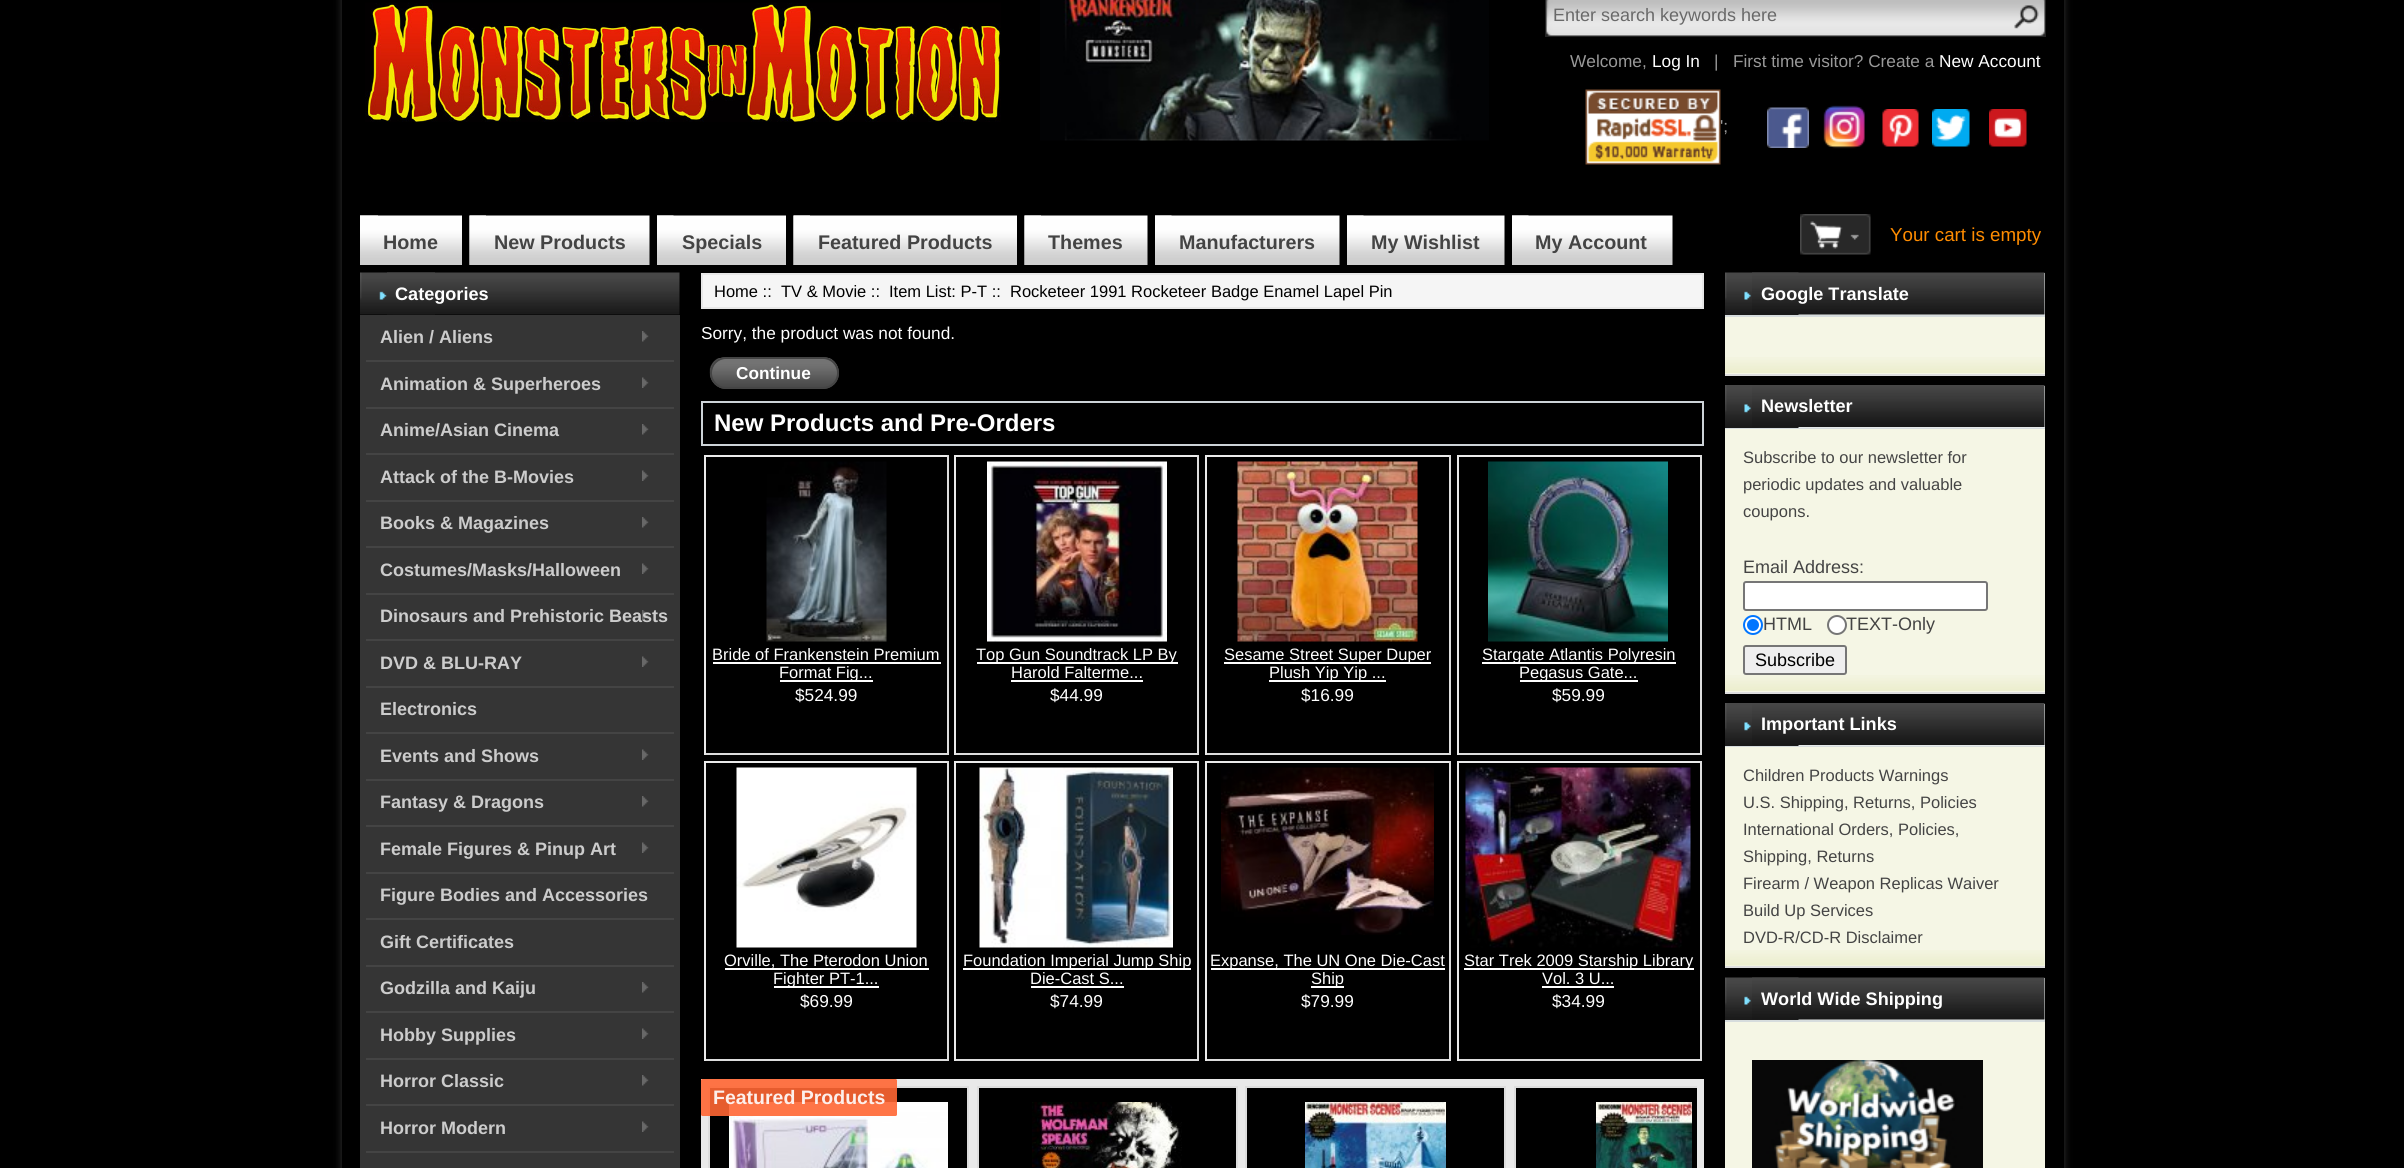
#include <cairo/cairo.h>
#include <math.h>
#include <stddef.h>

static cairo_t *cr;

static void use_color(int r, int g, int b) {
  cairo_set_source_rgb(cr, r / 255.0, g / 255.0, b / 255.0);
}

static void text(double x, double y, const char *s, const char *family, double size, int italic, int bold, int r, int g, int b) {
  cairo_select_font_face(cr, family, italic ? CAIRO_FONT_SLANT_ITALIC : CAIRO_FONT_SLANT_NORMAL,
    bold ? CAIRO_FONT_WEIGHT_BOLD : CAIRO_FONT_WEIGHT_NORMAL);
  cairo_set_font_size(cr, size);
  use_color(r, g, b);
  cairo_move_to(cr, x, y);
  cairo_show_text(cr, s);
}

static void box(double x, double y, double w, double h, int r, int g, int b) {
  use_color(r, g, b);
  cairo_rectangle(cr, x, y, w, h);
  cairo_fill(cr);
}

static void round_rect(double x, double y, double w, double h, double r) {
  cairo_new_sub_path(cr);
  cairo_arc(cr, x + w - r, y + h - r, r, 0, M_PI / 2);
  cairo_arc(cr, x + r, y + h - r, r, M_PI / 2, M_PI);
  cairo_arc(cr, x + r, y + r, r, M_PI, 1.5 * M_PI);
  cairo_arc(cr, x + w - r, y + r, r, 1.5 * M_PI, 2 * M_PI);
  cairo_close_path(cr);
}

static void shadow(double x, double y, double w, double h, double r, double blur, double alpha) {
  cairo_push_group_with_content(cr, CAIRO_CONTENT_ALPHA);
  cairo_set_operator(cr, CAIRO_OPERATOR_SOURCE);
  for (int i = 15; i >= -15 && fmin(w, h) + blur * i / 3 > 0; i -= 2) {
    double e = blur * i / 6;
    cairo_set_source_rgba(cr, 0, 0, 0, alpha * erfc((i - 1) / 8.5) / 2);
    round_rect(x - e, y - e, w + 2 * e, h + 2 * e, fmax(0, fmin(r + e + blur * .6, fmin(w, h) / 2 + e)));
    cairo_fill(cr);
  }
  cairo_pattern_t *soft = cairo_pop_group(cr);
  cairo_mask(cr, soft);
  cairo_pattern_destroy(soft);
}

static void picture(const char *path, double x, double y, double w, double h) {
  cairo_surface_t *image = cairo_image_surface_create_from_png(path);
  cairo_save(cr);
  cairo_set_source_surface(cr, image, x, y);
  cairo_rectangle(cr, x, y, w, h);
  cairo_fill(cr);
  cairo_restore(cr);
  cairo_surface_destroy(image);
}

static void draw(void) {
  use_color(0, 0, 0);
  cairo_paint(cr);
  cairo_save(cr);
  cairo_set_fill_rule(cr, CAIRO_FILL_RULE_EVEN_ODD);
  cairo_new_path(cr);
  cairo_move_to(cr, 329, 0);
  cairo_line_to(cr, 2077, 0);
  cairo_line_to(cr, 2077, 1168);
  cairo_line_to(cr, 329, 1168);
  cairo_close_path(cr);
  cairo_move_to(cr, 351, -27);
  cairo_line_to(cr, 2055, -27);
  cairo_curve_to(cr, 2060, -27, 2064, -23, 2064, -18);
  cairo_line_to(cr, 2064, 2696);
  cairo_line_to(cr, 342, 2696);
  cairo_line_to(cr, 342, -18);
  cairo_curve_to(cr, 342, -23, 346, -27, 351, -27);
  cairo_close_path(cr);
  cairo_clip(cr);
  use_color(51, 51, 51);
  shadow(342, -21, 1722, 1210, 9, 4, 1);
  cairo_restore(cr);
  picture("img_01.png", 365, 2, 636, 120);
  picture("img_02.png", 1040, 0, 449, 141);
  picture("img_03.png", 1545, 0, 459, 37);
  picture("img_04.png", 2004, 0, 42, 37);
  picture("img_05.png", 1585, 89, 136, 76);
  picture("img_06.png", 1767, 107, 42, 41);
  picture("img_07.png", 1823, 105, 42, 44);
  picture("img_08.png", 1882, 109, 37, 38);
  picture("img_09.png", 1932, 109, 38, 38);
  picture("img_10.png", 1989, 109, 38, 38);
  picture("img_11.png", 360, 215, 18, 1);
  picture("img_12.png", 360, 215, 102, 50);
  picture("img_13.png", 469, 215, 17, 50);
  picture("img_14.png", 469, 215, 181, 50);
  picture("img_15.png", 657, 215, 17, 1);
  picture("img_16.png", 657, 215, 129, 50);
  picture("img_13.png", 793, 215, 17, 50);
  picture("img_17.png", 793, 215, 224, 50);
  picture("img_13.png", 1024, 215, 17, 50);
  picture("img_18.png", 1024, 215, 124, 50);
  picture("img_15.png", 1155, 215, 17, 1);
  picture("img_19.png", 1155, 215, 185, 50);
  picture("img_15.png", 1347, 215, 17, 1);
  picture("img_20.png", 1347, 215, 158, 50);
  picture("img_15.png", 1512, 215, 17, 1);
  picture("img_21.png", 1512, 215, 161, 50);
  picture("img_22.png", 1800, 214, 71, 41);
  picture("img_23.png", 360, 272, 75, 43);
  picture("img_24.png", 387, 272, 293, 43);
  box(360, 315, 320, 853, 53, 53, 53);
  picture("img_25.png", 642, 331, 7, 11);
  box(366, 360, 308, 2, 68, 68, 68);
  picture("img_26.png", 642, 377, 7, 11);
  box(366, 407, 308, 2, 68, 68, 68);
  picture("img_25.png", 642, 424, 7, 11);
  box(366, 453, 308, 2, 68, 68, 68);
  picture("img_26.png", 642, 470, 7, 11);
  box(366, 500, 308, 2, 68, 68, 68);
  picture("img_25.png", 642, 517, 7, 11);
  box(366, 546, 308, 2, 68, 68, 68);
  picture("img_26.png", 642, 563, 7, 11);
  box(366, 593, 308, 2, 68, 68, 68);
  picture("img_25.png", 642, 610, 7, 11);
  box(366, 639, 308, 2, 68, 68, 68);
  picture("img_26.png", 642, 656, 7, 11);
  box(366, 686, 308, 2, 68, 68, 68);
  box(366, 732, 308, 2, 68, 68, 68);
  picture("img_26.png", 642, 749, 7, 11);
  box(366, 779, 308, 2, 68, 68, 68);
  picture("img_25.png", 642, 796, 7, 11);
  box(366, 825, 308, 2, 68, 68, 68);
  picture("img_26.png", 642, 842, 7, 11);
  box(366, 872, 308, 2, 68, 68, 68);
  box(366, 918, 308, 2, 68, 68, 68);
  box(366, 965, 308, 2, 68, 68, 68);
  picture("img_25.png", 642, 982, 7, 11);
  box(366, 1011, 308, 2, 68, 68, 68);
  picture("img_26.png", 642, 1028, 7, 11);
  box(366, 1058, 308, 2, 68, 68, 68);
  picture("img_25.png", 642, 1075, 7, 11);
  box(366, 1104, 308, 2, 68, 68, 68);
  picture("img_26.png", 642, 1121, 7, 11);
  box(366, 1151, 308, 2, 68, 68, 68);
  use_color(245, 245, 245);
  cairo_rectangle(cr, 702, 274, 1001, 34);
  cairo_fill_preserve(cr);
  use_color(231, 231, 231);
  cairo_stroke(cr);
  use_color(68, 68, 68);
  round_rect(710, 357, 129, 32, 16);
  cairo_fill(cr);
  picture("img_27.png", 709, 358, 130, 29);
  round_rect(711, 358, 127, 30, 15);
  cairo_stroke(cr);
  cairo_rectangle(cr, 702, 402, 1001, 43);
  use_color(205, 211, 215);
  cairo_stroke(cr);
  box(704, 455, 244, 2, 235, 235, 235);
  box(947, 455, 2, 300, 221, 221, 221);
  box(704, 753, 244, 2, 221, 221, 221);
  box(704, 455, 2, 300, 235, 235, 235);
  picture("img_28.png", 766, 461, 121, 181);
  box(713, 662, 228, 2, 255, 255, 255);
  box(780, 680, 93, 2, 255, 255, 255);
  box(954, 455, 245, 2, 235, 235, 235);
  box(1197, 455, 2, 300, 221, 221, 221);
  box(954, 753, 245, 2, 221, 221, 221);
  box(954, 455, 2, 300, 235, 235, 235);
  picture("img_29.png", 987, 461, 180, 181);
  box(977, 662, 201, 2, 255, 255, 255);
  box(1011, 680, 132, 2, 255, 255, 255);
  box(1205, 455, 246, 2, 235, 235, 235);
  box(1449, 455, 2, 300, 221, 221, 221);
  box(1205, 753, 246, 2, 221, 221, 221);
  box(1205, 455, 2, 300, 235, 235, 235);
  picture("img_30.png", 1237, 461, 181, 181);
  box(1224, 662, 207, 2, 255, 255, 255);
  box(1269, 680, 117, 2, 255, 255, 255);
  box(1457, 455, 244, 2, 235, 235, 235);
  box(1700, 455, 2, 300, 221, 221, 221);
  box(1457, 753, 244, 2, 221, 221, 221);
  box(1457, 455, 2, 300, 235, 235, 235);
  picture("img_31.png", 1488, 461, 180, 181);
  box(1482, 662, 194, 2, 255, 255, 255);
  box(1520, 680, 118, 2, 255, 255, 255);
  box(704, 761, 244, 2, 235, 235, 235);
  box(947, 761, 2, 300, 221, 221, 221);
  box(704, 1059, 244, 2, 221, 221, 221);
  box(704, 761, 2, 300, 235, 235, 235);
  picture("img_32.png", 736, 767, 181, 181);
  box(725, 968, 204, 2, 255, 255, 255);
  box(774, 986, 105, 2, 255, 255, 255);
  box(954, 761, 245, 2, 235, 235, 235);
  box(1197, 761, 2, 300, 221, 221, 221);
  box(954, 1059, 245, 2, 221, 221, 221);
  box(954, 761, 2, 300, 235, 235, 235);
  picture("img_33.png", 979, 767, 194, 181);
  box(963, 968, 228, 2, 255, 255, 255);
  box(1031, 986, 93, 2, 255, 255, 255);
  box(1205, 761, 246, 2, 235, 235, 235);
  box(1449, 761, 2, 300, 221, 221, 221);
  box(1205, 1059, 246, 2, 221, 221, 221);
  box(1205, 761, 2, 300, 235, 235, 235);
  picture("img_34.png", 1221, 767, 213, 168);
  box(1211, 968, 234, 2, 255, 255, 255);
  box(1311, 986, 33, 2, 255, 255, 255);
  box(1457, 761, 244, 2, 235, 235, 235);
  box(1700, 761, 2, 300, 221, 221, 221);
  box(1457, 1059, 244, 2, 221, 221, 221);
  box(1457, 761, 2, 300, 235, 235, 235);
  picture("img_35.png", 1465, 767, 226, 181);
  box(1464, 968, 230, 2, 255, 255, 255);
  box(1542, 986, 72, 2, 255, 255, 255);
  box(701, 1079, 1003, 89, 233, 233, 233);
  use_color(0, 0, 0);
  cairo_rectangle(cr, 709, 1087, 259, 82);
  cairo_fill_preserve(cr);
  use_color(221, 221, 221);
  cairo_stroke(cr);
  picture("img_36.png", 729, 1102, 219, 66);
  use_color(0, 0, 0);
  cairo_rectangle(cr, 978, 1087, 259, 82);
  cairo_fill_preserve(cr);
  use_color(221, 221, 221);
  cairo_stroke(cr);
  picture("img_37.png", 1032, 1102, 150, 66);
  use_color(0, 0, 0);
  cairo_rectangle(cr, 1246, 1087, 259, 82);
  cairo_fill_preserve(cr);
  use_color(221, 221, 221);
  cairo_stroke(cr);
  picture("img_38.png", 1305, 1102, 141, 66);
  box(1516, 1088, 181, 80, 0, 0, 0);
  box(1725, 1022, 320, 146, 245, 246, 229);
  picture("img_46.png", 1752, 1060, 231, 108);
  cairo_save(cr);
  cairo_rectangle(cr, 708, 1086, 989, 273);
  cairo_clip(cr);
  cairo_rectangle(cr, 1515, 1087, 259, 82);
  use_color(221, 221, 221);
  cairo_stroke(cr);
  cairo_restore(cr);
  picture("img_39.png", 1596, 1102, 96, 66);
  cairo_set_source_rgba(cr, 1, 0.4, 0.2, 0.9);
  round_rect(701, 1079, 196, 37, 1.5);
  cairo_fill(cr);
  box(1798, 273, 247, 42, 229, 233, 233);
  picture("img_40.png", 1725, 272, 74, 43);
  box(1725, 315, 320, 2, 214, 220, 221);
  picture("img_41.png", 1752, 272, 293, 43);
  box(1725, 317, 320, 57, 245, 246, 229);
  picture("img_42.png", 1725, 357, 320, 16);
  box(1725, 374, 320, 2, 222, 222, 222);
  box(1798, 386, 247, 42, 229, 233, 233);
  picture("img_43.png", 1725, 385, 74, 43);
  box(1725, 428, 320, 1, 214, 220, 221);
  picture("img_44.png", 1752, 385, 293, 42);
  box(1725, 429, 320, 263, 245, 246, 229);
  picture("img_42.png", 1725, 675, 320, 16);
  box(1725, 692, 320, 2, 222, 222, 222);
  use_color(255, 255, 255);
  round_rect(1744, 582, 243, 28, 2);
  cairo_fill_preserve(cr);
  use_color(118, 118, 118);
  cairo_stroke(cr);
  use_color(255, 255, 255);
  cairo_arc(cr, 1753, 625, 9, 0, 2 * M_PI);
  cairo_fill_preserve(cr);
  use_color(0, 117, 255);
  cairo_stroke(cr);
  cairo_arc(cr, 1753, 625, 6, 0, 2 * M_PI);
  cairo_fill(cr);
  use_color(255, 255, 255);
  cairo_arc(cr, 1837, 625, 9, 0, 2 * M_PI);
  cairo_fill_preserve(cr);
  use_color(118, 118, 118);
  cairo_stroke(cr);
  use_color(239, 239, 239);
  round_rect(1744, 646, 102, 28, 2);
  cairo_fill_preserve(cr);
  use_color(118, 118, 118);
  cairo_stroke(cr);
  box(1798, 704, 247, 42, 229, 233, 233);
  picture("img_43.png", 1725, 703, 74, 43);
  box(1725, 746, 320, 1, 214, 220, 221);
  picture("img_44.png", 1752, 703, 293, 42);
  box(1725, 747, 320, 219, 245, 246, 229);
  picture("img_45.png", 1725, 950, 320, 16);
  box(1725, 966, 320, 2, 222, 222, 222);
  box(1798, 978, 247, 42, 229, 233, 233);
  picture("img_40.png", 1725, 977, 74, 43);
  box(1725, 1020, 320, 2, 214, 220, 221);
  picture("img_41.png", 1752, 977, 293, 43);
  text(1553, 21, "Enter search keywords here", "Liberation Sans", 18, 0, 0, 105, 105, 105);
  text(1570, 67, "Welcome,", "Liberation Sans", 17.25, 0, 0, 153, 153, 153);
  text(1652, 67, "Log In", "Liberation Sans", 17.25, 0, 0, 255, 255, 255);
  text(1714, 67, "|", "Liberation Sans", 17.25, 0, 0, 153, 153, 153);
  text(1733, 67, "First time visitor? Create a", "Liberation Sans", 17.25, 0, 0, 153, 153, 153);
  text(1939, 67, "New Account", "Liberation Sans", 17.25, 0, 0, 255, 255, 255);
  text(1720, 132, "';", "Liberation Sans", 17.25, 0, 0, 153, 153, 153);
  text(383, 249, "Home", "Liberation Sans", 19.75, 0, 1, 68, 68, 68);
  text(494, 249, "New Products", "Liberation Sans", 19.75, 0, 1, 68, 68, 68);
  text(682, 249, "Specials", "Liberation Sans", 19.75, 0, 1, 68, 68, 68);
  text(818, 249, "Featured Products", "Liberation Sans", 19.75, 0, 1, 68, 68, 68);
  text(1048, 249, "Themes", "Liberation Sans", 19.75, 0, 1, 68, 68, 68);
  text(1179, 249, "Manufacturers", "Liberation Sans", 19.75, 0, 1, 68, 68, 68);
  text(1371, 249, "My Wishlist", "Liberation Sans", 19.75, 0, 1, 68, 68, 68);
  text(1535, 249, "My Account", "Liberation Sans", 19.75, 0, 1, 68, 68, 68);
  text(1890, 241, "Your cart is empty", "Liberation Sans", 18.75, 0, 0, 255, 140, 0);
  text(395, 300, "Categories", "Liberation Sans", 18.1, 0, 1, 255, 255, 255);
  text(380, 343, "Alien / Aliens", "Liberation Sans", 18, 0, 1, 204, 204, 204);
  text(380, 390, "Animation & Superheroes", "Liberation Sans", 18, 0, 1, 204, 204, 204);
  text(380, 436, "Anime/Asian Cinema", "Liberation Sans", 18, 0, 1, 204, 204, 204);
  text(380, 483, "Attack of the B-Movies", "Liberation Sans", 18, 0, 1, 204, 204, 204);
  text(380, 529, "Books & Magazines", "Liberation Sans", 18, 0, 1, 204, 204, 204);
  text(380, 576, "Costumes/Masks/Halloween", "Liberation Sans", 18, 0, 1, 204, 204, 204);
  text(380, 622, "Dinosaurs and Prehistoric Beasts", "Liberation Sans", 18, 0, 1, 204, 204, 204);
  text(380, 669, "DVD & BLU-RAY", "Liberation Sans", 18, 0, 1, 204, 204, 204);
  text(380, 715, "Electronics", "Liberation Sans", 18, 0, 1, 204, 204, 204);
  text(380, 762, "Events and Shows", "Liberation Sans", 18, 0, 1, 204, 204, 204);
  text(380, 808, "Fantasy & Dragons", "Liberation Sans", 18, 0, 1, 204, 204, 204);
  text(380, 855, "Female Figures & Pinup Art", "Liberation Sans", 18, 0, 1, 204, 204, 204);
  text(380, 901, "Figure Bodies and Accessories", "Liberation Sans", 18, 0, 1, 204, 204, 204);
  text(380, 948, "Gift Certificates", "Liberation Sans", 18, 0, 1, 204, 204, 204);
  text(380, 994, "Godzilla and Kaiju", "Liberation Sans", 18, 0, 1, 204, 204, 204);
  text(380, 1041, "Hobby Supplies", "Liberation Sans", 18, 0, 1, 204, 204, 204);
  text(380, 1087, "Horror Classic", "Liberation Sans", 18, 0, 1, 204, 204, 204);
  text(380, 1134, "Horror Modern", "Liberation Sans", 18, 0, 1, 204, 204, 204);
  text(714, 297, "Home ::", "Liberation Sans", 16.5, 0, 0, 0, 0, 0);
  text(781, 297, "TV & Movie ::", "Liberation Sans", 16.5, 0, 0, 0, 0, 0);
  text(889, 297, "Item List: P-T ::  Rocketeer 1991 Rocketeer Badge Enamel Lapel Pin", "Liberation Sans", 16.5, 0, 0, 0, 0, 0);
  text(701, 339, "Sorry, the product was not found.", "Liberation Sans", 17.25, 0, 0, 255, 255, 255);
  text(736, 379, "Continue", "Liberation Sans", 17.25, 0, 1, 255, 255, 255);
  text(714, 431, "New Products and Pre-Orders", "Liberation Sans", 24, 0, 1, 255, 255, 255);
  text(712, 660, "Bride of Frankenstein Premium", "Liberation Sans", 16.5, 0, 0, 255, 255, 255);
  text(779, 678, "Format Fig...", "Liberation Sans", 16.5, 0, 0, 255, 255, 255);
  text(795, 701, "$524.99", "Liberation Sans", 17.25, 0, 0, 255, 255, 255);
  text(976, 660, "Top Gun Soundtrack LP By", "Liberation Sans", 16.5, 0, 0, 255, 255, 255);
  text(1011, 678, "Harold Falterme...", "Liberation Sans", 16.5, 0, 0, 255, 255, 255);
  text(1050, 701, "$44.99", "Liberation Sans", 17.25, 0, 0, 255, 255, 255);
  text(1224, 660, "Sesame Street Super Duper", "Liberation Sans", 16.5, 0, 0, 255, 255, 255);
  text(1269, 678, "Plush Yip Yip ...", "Liberation Sans", 16.5, 0, 0, 255, 255, 255);
  text(1301, 701, "$16.99", "Liberation Sans", 17.25, 0, 0, 255, 255, 255);
  text(1482, 660, "Stargate Atlantis Polyresin", "Liberation Sans", 16.5, 0, 0, 255, 255, 255);
  text(1519, 678, "Pegasus Gate...", "Liberation Sans", 16.5, 0, 0, 255, 255, 255);
  text(1552, 701, "$59.99", "Liberation Sans", 17.25, 0, 0, 255, 255, 255);
  text(724, 966, "Orville, The Pterodon Union", "Liberation Sans", 16.5, 0, 0, 255, 255, 255);
  text(773, 984, "Fighter PT-1...", "Liberation Sans", 16.5, 0, 0, 255, 255, 255);
  text(800, 1007, "$69.99", "Liberation Sans", 17.25, 0, 0, 255, 255, 255);
  text(963, 966, "Foundation Imperial Jump Ship", "Liberation Sans", 16.5, 0, 0, 255, 255, 255);
  text(1030, 984, "Die-Cast S...", "Liberation Sans", 16.5, 0, 0, 255, 255, 255);
  text(1050, 1007, "$74.99", "Liberation Sans", 17.25, 0, 0, 255, 255, 255);
  text(1210, 966, "Expanse, The UN One Die-Cast", "Liberation Sans", 16.5, 0, 0, 255, 255, 255);
  text(1311, 984, "Ship", "Liberation Sans", 16.5, 0, 0, 255, 255, 255);
  text(1301, 1007, "$79.99", "Liberation Sans", 17.25, 0, 0, 255, 255, 255);
  text(1464, 966, "Star Trek 2009 Starship Library", "Liberation Sans", 16.5, 0, 0, 255, 255, 255);
  text(1542, 984, "Vol. 3 U...", "Liberation Sans", 16.5, 0, 0, 255, 255, 255);
  text(1552, 1007, "$34.99", "Liberation Sans", 17.25, 0, 0, 255, 255, 255);
  text(713, 1104, "Featured Products", "Liberation Sans", 19.5, 0, 1, 253, 239, 235);
  text(1761, 300, "Google Translate", "Liberation Sans", 18.1, 0, 1, 255, 255, 255);
  text(1761, 412, "Newsletter", "Liberation Sans", 18.1, 0, 1, 255, 255, 255);
  text(1743, 463, "Subscribe to our newsletter for", "Liberation Sans", 16.5, 0, 0, 68, 68, 68);
  text(1743, 490, "periodic updates and valuable", "Liberation Sans", 16.5, 0, 0, 68, 68, 68);
  text(1743, 517, "coupons.", "Liberation Sans", 16.5, 0, 0, 68, 68, 68);
  text(1743, 573, "Email Address:", "Liberation Sans", 18, 0, 0, 68, 68, 68);
  text(1763, 630, "HTML", "Liberation Sans", 18, 0, 0, 68, 68, 68);
  text(1846, 630, "TEXT-Only", "Liberation Sans", 18, 0, 0, 68, 68, 68);
  text(1755, 666, "Subscribe", "Liberation Sans", 18, 0, 0, 0, 0, 0);
  text(1761, 730, "Important Links", "Liberation Sans", 18.1, 0, 1, 255, 255, 255);
  text(1743, 781, "Children Products Warnings", "Liberation Sans", 16.5, 0, 0, 68, 68, 68);
  text(1743, 808, "U.S. Shipping, Returns, Policies", "Liberation Sans", 16.5, 0, 0, 68, 68, 68);
  text(1743, 835, "International Orders, Policies,", "Liberation Sans", 16.5, 0, 0, 68, 68, 68);
  text(1743, 862, "Shipping, Returns", "Liberation Sans", 16.5, 0, 0, 68, 68, 68);
  text(1743, 889, "Firearm / Weapon Replicas Waiver", "Liberation Sans", 16.5, 0, 0, 68, 68, 68);
  text(1743, 916, "Build Up Services", "Liberation Sans", 16.5, 0, 0, 68, 68, 68);
  text(1743, 943, "DVD-R/CD-R Disclaimer", "Liberation Sans", 16.5, 0, 0, 68, 68, 68);
  text(1761, 1005, "World Wide Shipping", "Liberation Sans", 18.1, 0, 1, 255, 255, 255);
}

int main(void) {
  cairo_surface_t *surface = cairo_image_surface_create(CAIRO_FORMAT_RGB24, 2404, 1168);
  cr = cairo_create(surface);
  cairo_font_options_t *options = cairo_font_options_create();
  cairo_font_options_set_hint_metrics(options, CAIRO_HINT_METRICS_OFF);
  cairo_font_options_set_hint_style(options, CAIRO_HINT_STYLE_NONE);
  cairo_set_font_options(cr, options);
  cairo_set_miter_limit(cr, 4);
  draw();
  cairo_surface_write_to_png(surface, "out.png");
  cairo_font_options_destroy(options);
  cairo_destroy(cr);
  cairo_surface_destroy(surface);
  return 0;
}
